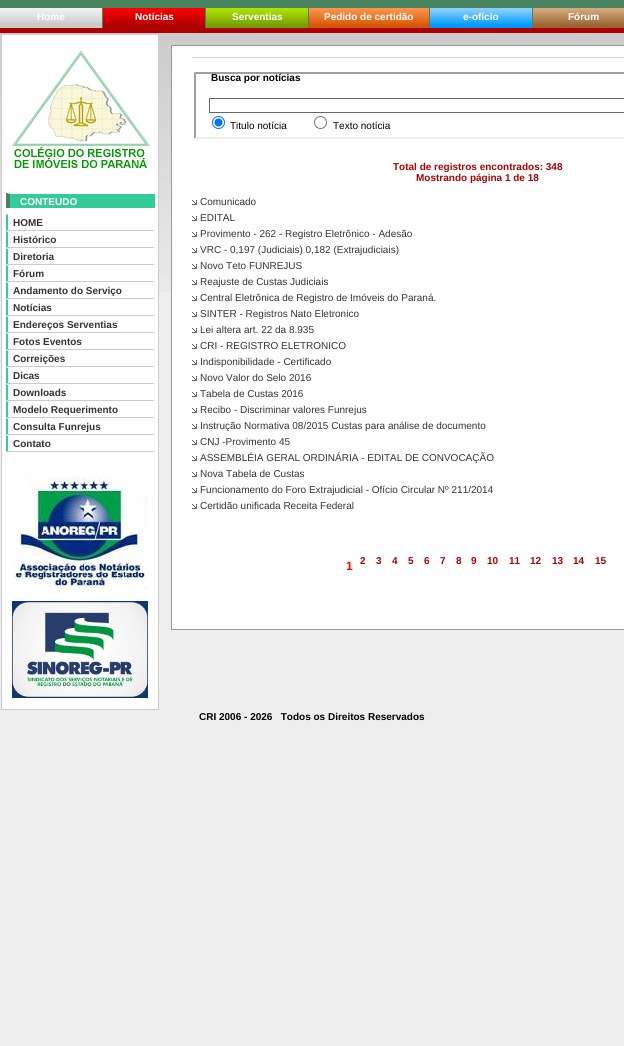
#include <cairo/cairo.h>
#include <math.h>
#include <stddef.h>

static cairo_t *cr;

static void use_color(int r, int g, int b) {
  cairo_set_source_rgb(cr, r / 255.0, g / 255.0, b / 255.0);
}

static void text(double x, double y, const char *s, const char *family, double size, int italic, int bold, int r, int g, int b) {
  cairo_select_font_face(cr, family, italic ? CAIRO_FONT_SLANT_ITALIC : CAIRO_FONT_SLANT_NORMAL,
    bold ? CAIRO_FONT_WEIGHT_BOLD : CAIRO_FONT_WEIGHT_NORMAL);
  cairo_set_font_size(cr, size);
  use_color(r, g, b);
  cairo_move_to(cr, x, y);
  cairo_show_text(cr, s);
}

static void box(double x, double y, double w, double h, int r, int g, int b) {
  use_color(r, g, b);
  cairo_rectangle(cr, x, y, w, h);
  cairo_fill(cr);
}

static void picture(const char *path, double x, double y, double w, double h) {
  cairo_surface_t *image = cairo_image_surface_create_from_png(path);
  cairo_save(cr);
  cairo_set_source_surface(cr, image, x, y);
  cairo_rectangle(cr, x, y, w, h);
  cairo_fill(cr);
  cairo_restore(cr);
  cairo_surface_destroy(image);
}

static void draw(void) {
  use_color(238, 238, 238);
  cairo_paint(cr);
  picture("img_01.png", 0, 33, 624, 259);
  box(0, 0, 624, 28, 72, 132, 96);
  box(0, 23, 102, 5, 202, 202, 202);
  picture("img_02.png", 0, 8, 102, 15);
  box(103, 25, 102, 3, 175, 0, 1);
  picture("img_03.png", 103, 8, 102, 17);
  box(206, 25, 102, 3, 118, 157, 3);
  picture("img_04.png", 206, 8, 102, 17);
  box(309, 25, 120, 3, 214, 87, 3);
  picture("img_05.png", 309, 8, 120, 17);
  box(430, 25, 102, 3, 0, 153, 255);
  picture("img_06.png", 430, 8, 102, 17);
  box(533, 25, 91, 3, 153, 102, 51);
  picture("img_07.png", 533, 8, 91, 17);
  box(0, 28, 624, 5, 175, 0, 1);
  box(1, 61, 158, 649, 204, 204, 204);
  box(2, 35, 156, 674, 255, 255, 255);
  picture("img_08.png", 12, 50, 138, 118);
  box(6, 193, 149, 15, 51, 204, 153);
  use_color(255, 255, 255);
  cairo_new_path(cr);
  cairo_move_to(cr, 6, 193);
  cairo_line_to(cr, 155, 193);
  cairo_line_to(cr, 155, 194);
  cairo_line_to(cr, 10, 194);
  cairo_close_path(cr);
  cairo_fill(cr);
  use_color(72, 132, 96);
  cairo_new_path(cr);
  cairo_move_to(cr, 6, 208);
  cairo_line_to(cr, 6, 193);
  cairo_line_to(cr, 10, 194);
  cairo_line_to(cr, 10, 208);
  cairo_close_path(cr);
  cairo_fill(cr);
  box(6, 230, 148, 1, 204, 204, 204);
  use_color(51, 204, 153);
  cairo_new_path(cr);
  cairo_move_to(cr, 6, 230);
  cairo_line_to(cr, 6, 214);
  cairo_line_to(cr, 8, 215);
  cairo_line_to(cr, 8, 230);
  cairo_close_path(cr);
  cairo_fill(cr);
  box(6, 247, 148, 1, 204, 204, 204);
  use_color(51, 204, 153);
  cairo_new_path(cr);
  cairo_move_to(cr, 6, 247);
  cairo_line_to(cr, 6, 231);
  cairo_line_to(cr, 8, 232);
  cairo_line_to(cr, 8, 247);
  cairo_close_path(cr);
  cairo_fill(cr);
  box(6, 264, 148, 1, 204, 204, 204);
  use_color(51, 204, 153);
  cairo_new_path(cr);
  cairo_move_to(cr, 6, 264);
  cairo_line_to(cr, 6, 248);
  cairo_line_to(cr, 8, 249);
  cairo_line_to(cr, 8, 264);
  cairo_close_path(cr);
  cairo_fill(cr);
  box(6, 281, 148, 1, 204, 204, 204);
  use_color(51, 204, 153);
  cairo_new_path(cr);
  cairo_move_to(cr, 6, 281);
  cairo_line_to(cr, 6, 265);
  cairo_line_to(cr, 8, 266);
  cairo_line_to(cr, 8, 281);
  cairo_close_path(cr);
  cairo_fill(cr);
  box(6, 298, 148, 1, 204, 204, 204);
  use_color(51, 204, 153);
  cairo_new_path(cr);
  cairo_move_to(cr, 6, 298);
  cairo_line_to(cr, 6, 282);
  cairo_line_to(cr, 8, 283);
  cairo_line_to(cr, 8, 298);
  cairo_close_path(cr);
  cairo_fill(cr);
  box(6, 315, 148, 1, 204, 204, 204);
  use_color(51, 204, 153);
  cairo_new_path(cr);
  cairo_move_to(cr, 6, 315);
  cairo_line_to(cr, 6, 299);
  cairo_line_to(cr, 8, 300);
  cairo_line_to(cr, 8, 315);
  cairo_close_path(cr);
  cairo_fill(cr);
  box(6, 332, 148, 1, 204, 204, 204);
  use_color(51, 204, 153);
  cairo_new_path(cr);
  cairo_move_to(cr, 6, 332);
  cairo_line_to(cr, 6, 316);
  cairo_line_to(cr, 8, 317);
  cairo_line_to(cr, 8, 332);
  cairo_close_path(cr);
  cairo_fill(cr);
  box(6, 349, 148, 1, 204, 204, 204);
  use_color(51, 204, 153);
  cairo_new_path(cr);
  cairo_move_to(cr, 6, 349);
  cairo_line_to(cr, 6, 333);
  cairo_line_to(cr, 8, 334);
  cairo_line_to(cr, 8, 349);
  cairo_close_path(cr);
  cairo_fill(cr);
  box(6, 366, 148, 1, 204, 204, 204);
  use_color(51, 204, 153);
  cairo_new_path(cr);
  cairo_move_to(cr, 6, 366);
  cairo_line_to(cr, 6, 350);
  cairo_line_to(cr, 8, 351);
  cairo_line_to(cr, 8, 366);
  cairo_close_path(cr);
  cairo_fill(cr);
  box(6, 383, 148, 1, 204, 204, 204);
  use_color(51, 204, 153);
  cairo_new_path(cr);
  cairo_move_to(cr, 6, 383);
  cairo_line_to(cr, 6, 367);
  cairo_line_to(cr, 8, 368);
  cairo_line_to(cr, 8, 383);
  cairo_close_path(cr);
  cairo_fill(cr);
  box(6, 400, 148, 1, 204, 204, 204);
  use_color(51, 204, 153);
  cairo_new_path(cr);
  cairo_move_to(cr, 6, 400);
  cairo_line_to(cr, 6, 384);
  cairo_line_to(cr, 8, 385);
  cairo_line_to(cr, 8, 400);
  cairo_close_path(cr);
  cairo_fill(cr);
  box(6, 417, 148, 1, 204, 204, 204);
  use_color(51, 204, 153);
  cairo_new_path(cr);
  cairo_move_to(cr, 6, 417);
  cairo_line_to(cr, 6, 401);
  cairo_line_to(cr, 8, 402);
  cairo_line_to(cr, 8, 417);
  cairo_close_path(cr);
  cairo_fill(cr);
  box(6, 434, 148, 1, 204, 204, 204);
  use_color(51, 204, 153);
  cairo_new_path(cr);
  cairo_move_to(cr, 6, 434);
  cairo_line_to(cr, 6, 418);
  cairo_line_to(cr, 8, 419);
  cairo_line_to(cr, 8, 434);
  cairo_close_path(cr);
  cairo_fill(cr);
  box(6, 451, 148, 1, 204, 204, 204);
  use_color(51, 204, 153);
  cairo_new_path(cr);
  cairo_move_to(cr, 6, 451);
  cairo_line_to(cr, 6, 435);
  cairo_line_to(cr, 8, 436);
  cairo_line_to(cr, 8, 451);
  cairo_close_path(cr);
  cairo_fill(cr);
  picture("img_09.png", 13, 476, 134, 114);
  picture("img_10.png", 12, 601, 136, 97);
  box(171, 45, 453, 585, 153, 153, 153);
  box(172, 46, 452, 583, 255, 255, 255);
  box(192, 57, 432, 1, 215, 215, 215);
  use_color(159, 159, 159);
  cairo_new_path(cr);
  cairo_move_to(cr, 194, 72);
  cairo_line_to(cr, 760, 72);
  cairo_line_to(cr, 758, 74);
  cairo_line_to(cr, 196, 74);
  cairo_close_path(cr);
  cairo_fill(cr);
  use_color(239, 239, 239);
  cairo_new_path(cr);
  cairo_move_to(cr, 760, 139);
  cairo_line_to(cr, 194, 139);
  cairo_line_to(cr, 196, 137);
  cairo_line_to(cr, 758, 137);
  cairo_close_path(cr);
  cairo_fill(cr);
  use_color(159, 159, 159);
  cairo_new_path(cr);
  cairo_move_to(cr, 194, 139);
  cairo_line_to(cr, 194, 72);
  cairo_line_to(cr, 196, 74);
  cairo_line_to(cr, 196, 137);
  cairo_close_path(cr);
  cairo_fill(cr);
  cairo_rectangle(cr, 209.5, 98.5, 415, 14);
  use_color(102, 102, 102);
  cairo_set_line_width(cr, 1);
  cairo_stroke(cr);
  cairo_arc(cr, 218.5, 122.5, 6, 0, 2 * M_PI);
  use_color(0, 117, 255);
  cairo_stroke(cr);
  cairo_arc(cr, 218.5, 122.5, 4, 0, 2 * M_PI);
  cairo_fill(cr);
  cairo_arc(cr, 320.5, 122.5, 6, 0, 2 * M_PI);
  use_color(118, 118, 118);
  cairo_stroke(cr);
  picture("img_11.png", 192, 200, 5, 5);
  picture("img_11.png", 192, 216, 5, 5);
  picture("img_11.png", 192, 232, 5, 5);
  picture("img_11.png", 192, 248, 5, 5);
  picture("img_11.png", 192, 264, 5, 5);
  picture("img_11.png", 192, 280, 5, 5);
  picture("img_11.png", 192, 296, 5, 5);
  picture("img_11.png", 192, 312, 5, 5);
  picture("img_11.png", 192, 328, 5, 5);
  picture("img_11.png", 192, 344, 5, 5);
  picture("img_11.png", 192, 360, 5, 5);
  picture("img_11.png", 192, 376, 5, 5);
  picture("img_11.png", 192, 392, 5, 5);
  picture("img_11.png", 192, 408, 5, 5);
  picture("img_11.png", 192, 424, 5, 5);
  picture("img_11.png", 192, 440, 5, 5);
  picture("img_11.png", 192, 456, 5, 5);
  picture("img_11.png", 192, 472, 5, 5);
  picture("img_11.png", 192, 488, 5, 5);
  picture("img_11.png", 192, 504, 5, 5);
  text(37, 20, "Home", "Liberation Sans", 10, 0, 1, 255, 255, 255);
  text(135, 20, "Notícias", "Liberation Sans", 10, 0, 1, 255, 255, 255);
  text(232, 20, "Serventias", "Liberation Sans", 10, 0, 1, 255, 255, 255);
  text(324, 20, "Pedido de certidão", "Liberation Sans", 10, 0, 1, 255, 255, 255);
  text(463, 20, "e-ofício", "Liberation Sans", 10, 0, 1, 255, 255, 255);
  text(568, 20, "Fórum", "Liberation Sans", 10, 0, 1, 255, 255, 255);
  text(20, 205, "CONTEUDO", "Liberation Sans", 10, 0, 1, 255, 255, 255);
  text(13, 226, "HOME", "Liberation Sans", 10, 0, 1, 51, 51, 51);
  text(13, 243, "Histórico", "Liberation Sans", 10, 0, 1, 51, 51, 51);
  text(13, 260, "Diretoria", "Liberation Sans", 10, 0, 1, 51, 51, 51);
  text(13, 277, "Fórum", "Liberation Sans", 10, 0, 1, 51, 51, 51);
  text(13, 294, "Andamento do Serviço", "Liberation Sans", 10, 0, 1, 51, 51, 51);
  text(13, 311, "Notícias", "Liberation Sans", 10, 0, 1, 51, 51, 51);
  text(13, 328, "Endereços Serventias", "Liberation Sans", 10, 0, 1, 51, 51, 51);
  text(13, 345, "Fotos Eventos", "Liberation Sans", 10, 0, 1, 51, 51, 51);
  text(13, 362, "Correições", "Liberation Sans", 10, 0, 1, 51, 51, 51);
  text(13, 379, "Dicas", "Liberation Sans", 10, 0, 1, 51, 51, 51);
  text(13, 396, "Downloads", "Liberation Sans", 10, 0, 1, 51, 51, 51);
  text(13, 413, "Modelo Requerimento", "Liberation Sans", 10, 0, 1, 51, 51, 51);
  text(13, 430, "Consulta Funrejus", "Liberation Sans", 10, 0, 1, 51, 51, 51);
  text(13, 447, "Contato", "Liberation Sans", 10, 0, 1, 51, 51, 51);
  text(211, 81, "Busca por notícias", "Liberation Sans", 10, 0, 1, 0, 0, 0);
  text(230, 129, "Titulo notícia", "Liberation Sans", 10, 0, 0, 0, 0, 0);
  text(333, 129, "Texto notícia", "Liberation Sans", 10, 0, 0, 0, 0, 0);
  text(393, 170, "Total de registros encontrados: 348", "Liberation Sans", 10, 0, 1, 175, 0, 1);
  text(416, 181, "Mostrando página 1 de 18", "Liberation Sans", 10, 0, 1, 175, 0, 1);
  text(200, 205, "Comunicado", "Liberation Sans", 10, 0, 0, 51, 51, 51);
  text(200, 221, "EDITAL", "Liberation Sans", 10, 0, 0, 51, 51, 51);
  text(200, 237, "Provimento - 262 - Registro Eletrônico - Adesão", "Liberation Sans", 10, 0, 0, 51, 51, 51);
  text(200, 253, "VRC - 0,197 (Judiciais) 0,182 (Extrajudiciais)", "Liberation Sans", 10, 0, 0, 51, 51, 51);
  text(200, 269, "Novo Teto FUNREJUS", "Liberation Sans", 10, 0, 0, 51, 51, 51);
  text(200, 285, "Reajuste de Custas Judiciais", "Liberation Sans", 10, 0, 0, 51, 51, 51);
  text(200, 301, "Central Eletrônica de Registro de Imóveis do Paraná.", "Liberation Sans", 10, 0, 0, 51, 51, 51);
  text(200, 317, "SINTER - Registros Nato Eletronico", "Liberation Sans", 10, 0, 0, 51, 51, 51);
  text(200, 333, "Lei altera art. 22 da 8.935", "Liberation Sans", 10, 0, 0, 51, 51, 51);
  text(200, 349, "CRI - REGISTRO ELETRONICO", "Liberation Sans", 10, 0, 0, 51, 51, 51);
  text(200, 365, "Indisponibilidade - Certificado", "Liberation Sans", 10, 0, 0, 51, 51, 51);
  text(200, 381, "Novo Valor do Selo 2016", "Liberation Sans", 10, 0, 0, 51, 51, 51);
  text(200, 397, "Tabela de Custas 2016", "Liberation Sans", 10, 0, 0, 51, 51, 51);
  text(200, 413, "Recibo - Discriminar valores Funrejus", "Liberation Sans", 10, 0, 0, 51, 51, 51);
  text(200, 429, "Instrução Normativa 08/2015 Custas para análise de documento", "Liberation Sans", 10, 0, 0, 51, 51, 51);
  text(200, 445, "CNJ -Provimento 45", "Liberation Sans", 10, 0, 0, 51, 51, 51);
  text(200, 461, "ASSEMBLÉIA GERAL ORDINÁRIA - EDITAL DE CONVOCAÇÃO", "Liberation Sans", 10, 0, 0, 51, 51, 51);
  text(200, 477, "Nova Tabela de Custas", "Liberation Sans", 10, 0, 0, 51, 51, 51);
  text(200, 493, "Funcionamento do Foro Extrajudicial - Ofício Circular Nº 211/2014", "Liberation Sans", 10, 0, 0, 51, 51, 51);
  text(200, 509, "Certidão unificada Receita Federal", "Liberation Sans", 10, 0, 0, 51, 51, 51);
  text(346, 570, "1", "Liberation Sans", 12, 0, 1, 255, 0, 0);
  text(360, 564, "2", "Liberation Sans", 10, 0, 1, 175, 0, 1);
  text(376, 564, "3", "Liberation Sans", 10, 0, 1, 175, 0, 1);
  text(392, 564, "4", "Liberation Sans", 10, 0, 1, 175, 0, 1);
  text(408, 564, "5", "Liberation Sans", 10, 0, 1, 175, 0, 1);
  text(424, 564, "6", "Liberation Sans", 10, 0, 1, 175, 0, 1);
  text(440, 564, "7", "Liberation Sans", 10, 0, 1, 175, 0, 1);
  text(456, 564, "8", "Liberation Sans", 10, 0, 1, 175, 0, 1);
  text(471, 564, "9", "Liberation Sans", 10, 0, 1, 175, 0, 1);
  text(487, 564, "10", "Liberation Sans", 10, 0, 1, 175, 0, 1);
  text(509, 564, "11", "Liberation Sans", 10, 0, 1, 175, 0, 1);
  text(530, 564, "12", "Liberation Sans", 10, 0, 1, 175, 0, 1);
  text(552, 564, "13", "Liberation Sans", 10, 0, 1, 175, 0, 1);
  text(573, 564, "14", "Liberation Sans", 10, 0, 1, 175, 0, 1);
  text(595, 564, "15", "Liberation Sans", 10, 0, 1, 175, 0, 1);
  text(199, 720, "CRI 2006 - 2026   Todos os Direitos Reservados", "Liberation Sans", 10, 0, 1, 0, 0, 0);
}

int main(void) {
  cairo_surface_t *surface = cairo_image_surface_create(CAIRO_FORMAT_RGB24, 624, 1046);
  cr = cairo_create(surface);
  cairo_font_options_t *options = cairo_font_options_create();
  cairo_font_options_set_hint_metrics(options, CAIRO_HINT_METRICS_OFF);
  cairo_font_options_set_hint_style(options, CAIRO_HINT_STYLE_NONE);
  cairo_set_font_options(cr, options);
  cairo_set_miter_limit(cr, 4);
  draw();
  cairo_surface_write_to_png(surface, "out.png");
  cairo_font_options_destroy(options);
  cairo_destroy(cr);
  cairo_surface_destroy(surface);
  return 0;
}
